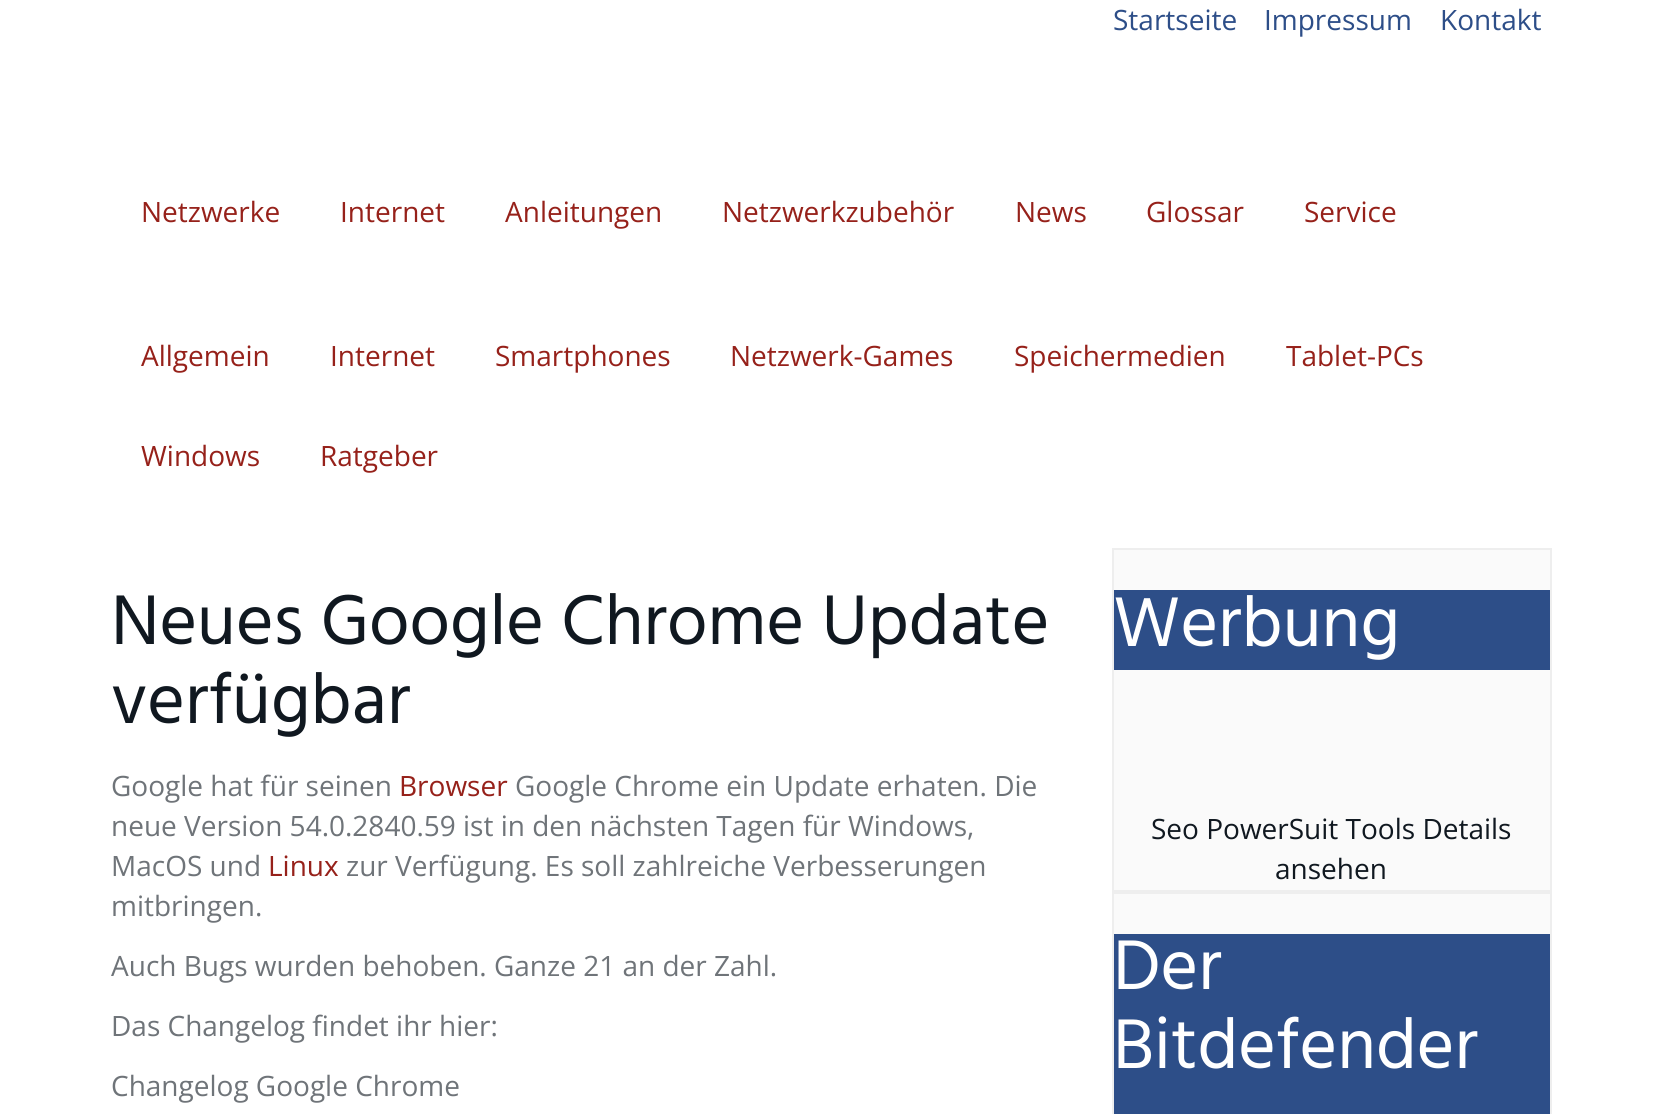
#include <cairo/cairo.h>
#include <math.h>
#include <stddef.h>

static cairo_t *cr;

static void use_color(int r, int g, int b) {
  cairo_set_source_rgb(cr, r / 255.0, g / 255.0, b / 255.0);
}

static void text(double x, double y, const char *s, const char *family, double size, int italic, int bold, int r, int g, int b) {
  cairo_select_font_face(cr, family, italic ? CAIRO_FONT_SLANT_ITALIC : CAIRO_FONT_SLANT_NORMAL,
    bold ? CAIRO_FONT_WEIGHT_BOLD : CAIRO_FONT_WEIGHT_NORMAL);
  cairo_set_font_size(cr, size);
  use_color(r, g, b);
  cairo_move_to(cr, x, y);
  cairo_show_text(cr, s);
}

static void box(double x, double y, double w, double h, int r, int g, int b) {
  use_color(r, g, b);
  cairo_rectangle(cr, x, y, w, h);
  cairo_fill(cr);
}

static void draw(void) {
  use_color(255, 255, 255);
  cairo_paint(cr);
  use_color(250, 250, 250);
  cairo_rectangle(cr, 1113, 549, 438, 342);
  cairo_fill_preserve(cr);
  use_color(238, 238, 238);
  cairo_stroke(cr);
  box(1114, 590, 436, 80, 45, 78, 136);
  box(1114, 894, 436, 40, 250, 250, 250);
  cairo_rectangle(cr, 1113, 893, 438, 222);
  use_color(238, 238, 238);
  cairo_stroke(cr);
  box(1114, 934, 436, 180, 45, 78, 136);
  text(1113, 30, "Startseite", "Open Sans", 28, 0, 0, 45, 78, 136);
  text(1264, 30, "Impressum", "Open Sans", 28, 0, 0, 45, 78, 136);
  text(1440, 30, "Kontakt", "Open Sans", 28, 0, 0, 45, 78, 136);
  text(141, 222, "Netzwerke", "Open Sans", 28, 0, 0, 150, 33, 26);
  text(340, 222, "Internet", "Open Sans", 28, 0, 0, 150, 33, 26);
  text(505, 222, "Anleitungen", "Open Sans", 28, 0, 0, 150, 33, 26);
  text(722, 222, "Netzwerkzubehör", "Open Sans", 28, 0, 0, 150, 33, 26);
  text(1015, 222, "News", "Open Sans", 28, 0, 0, 150, 33, 26);
  text(1146, 222, "Glossar", "Open Sans", 28, 0, 0, 150, 33, 26);
  text(1304, 222, "Service", "Open Sans", 28, 0, 0, 150, 33, 26);
  text(141, 366, "Allgemein", "Open Sans", 28, 0, 0, 150, 33, 26);
  text(330, 366, "Internet", "Open Sans", 28, 0, 0, 150, 33, 26);
  text(495, 366, "Smartphones", "Open Sans", 28, 0, 0, 150, 33, 26);
  text(730, 366, "Netzwerk-Games", "Open Sans", 28, 0, 0, 150, 33, 26);
  text(1014, 366, "Speichermedien", "Open Sans", 28, 0, 0, 150, 33, 26);
  text(1286, 366, "Tablet-PCs", "Open Sans", 28, 0, 0, 150, 33, 26);
  text(141, 466, "Windows", "Open Sans", 28, 0, 0, 150, 33, 26);
  text(320, 466, "Ratgeber", "Open Sans", 28, 0, 0, 150, 33, 26);
  text(111, 644, "Neues Google Chrome Update", "Hind", 72, 0, 0, 16, 24, 32);
  text(111, 723, "verfügbar", "Hind", 72, 0, 0, 16, 24, 32);
  text(111, 796, "Google hat für seinen", "Open Sans", 28, 0, 0, 111, 116, 121);
  text(399, 796, "Browser", "Open Sans", 28, 0, 0, 150, 33, 26);
  text(515, 796, "Google Chrome ein Update erhaten. Die", "Open Sans", 28, 0, 0, 111, 116, 121);
  text(111, 836, "neue Version 54.0.2840.59 ist in den nächsten Tagen für Windows,", "Open Sans", 28, 0, 0, 111, 116, 121);
  text(111, 876, "MacOS und", "Open Sans", 28, 0, 0, 111, 116, 121);
  text(268, 876, "Linux", "Open Sans", 28, 0, 0, 150, 33, 26);
  text(346, 876, "zur Verfügung. Es soll zahlreiche Verbesserungen", "Open Sans", 28, 0, 0, 111, 116, 121);
  text(111, 916, "mitbringen.", "Open Sans", 28, 0, 0, 111, 116, 121);
  text(111, 976, "Auch Bugs wurden behoben. Ganze 21 an der Zahl.", "Open Sans", 28, 0, 0, 111, 116, 121);
  text(111, 1036, "Das Changelog findet ihr hier:", "Open Sans", 28, 0, 0, 111, 116, 121);
  text(111, 1096, "Changelog Google Chrome", "Open Sans", 28, 0, 0, 111, 116, 121);
  text(1113, 646, "Werbung", "Hind", 72, 0, 0, 255, 255, 255);
  text(1151, 839, "Seo PowerSuit Tools Details", "Open Sans", 28, 0, 0, 16, 24, 32);
  text(1275, 879, "ansehen", "Open Sans", 28, 0, 0, 16, 24, 32);
  text(1113, 989, "Der", "Hind", 72, 0, 0, 255, 255, 255);
  text(1113, 1068, "Bitdefender", "Hind", 72, 0, 0, 255, 255, 255);
}

int main(void) {
  cairo_surface_t *surface = cairo_image_surface_create(CAIRO_FORMAT_RGB24, 1661, 1114);
  cr = cairo_create(surface);
  cairo_font_options_t *options = cairo_font_options_create();
  cairo_font_options_set_hint_metrics(options, CAIRO_HINT_METRICS_OFF);
  cairo_font_options_set_hint_style(options, CAIRO_HINT_STYLE_NONE);
  cairo_set_font_options(cr, options);
  cairo_set_miter_limit(cr, 4);
  draw();
  cairo_surface_write_to_png(surface, "out.png");
  cairo_font_options_destroy(options);
  cairo_destroy(cr);
  cairo_surface_destroy(surface);
  return 0;
}
